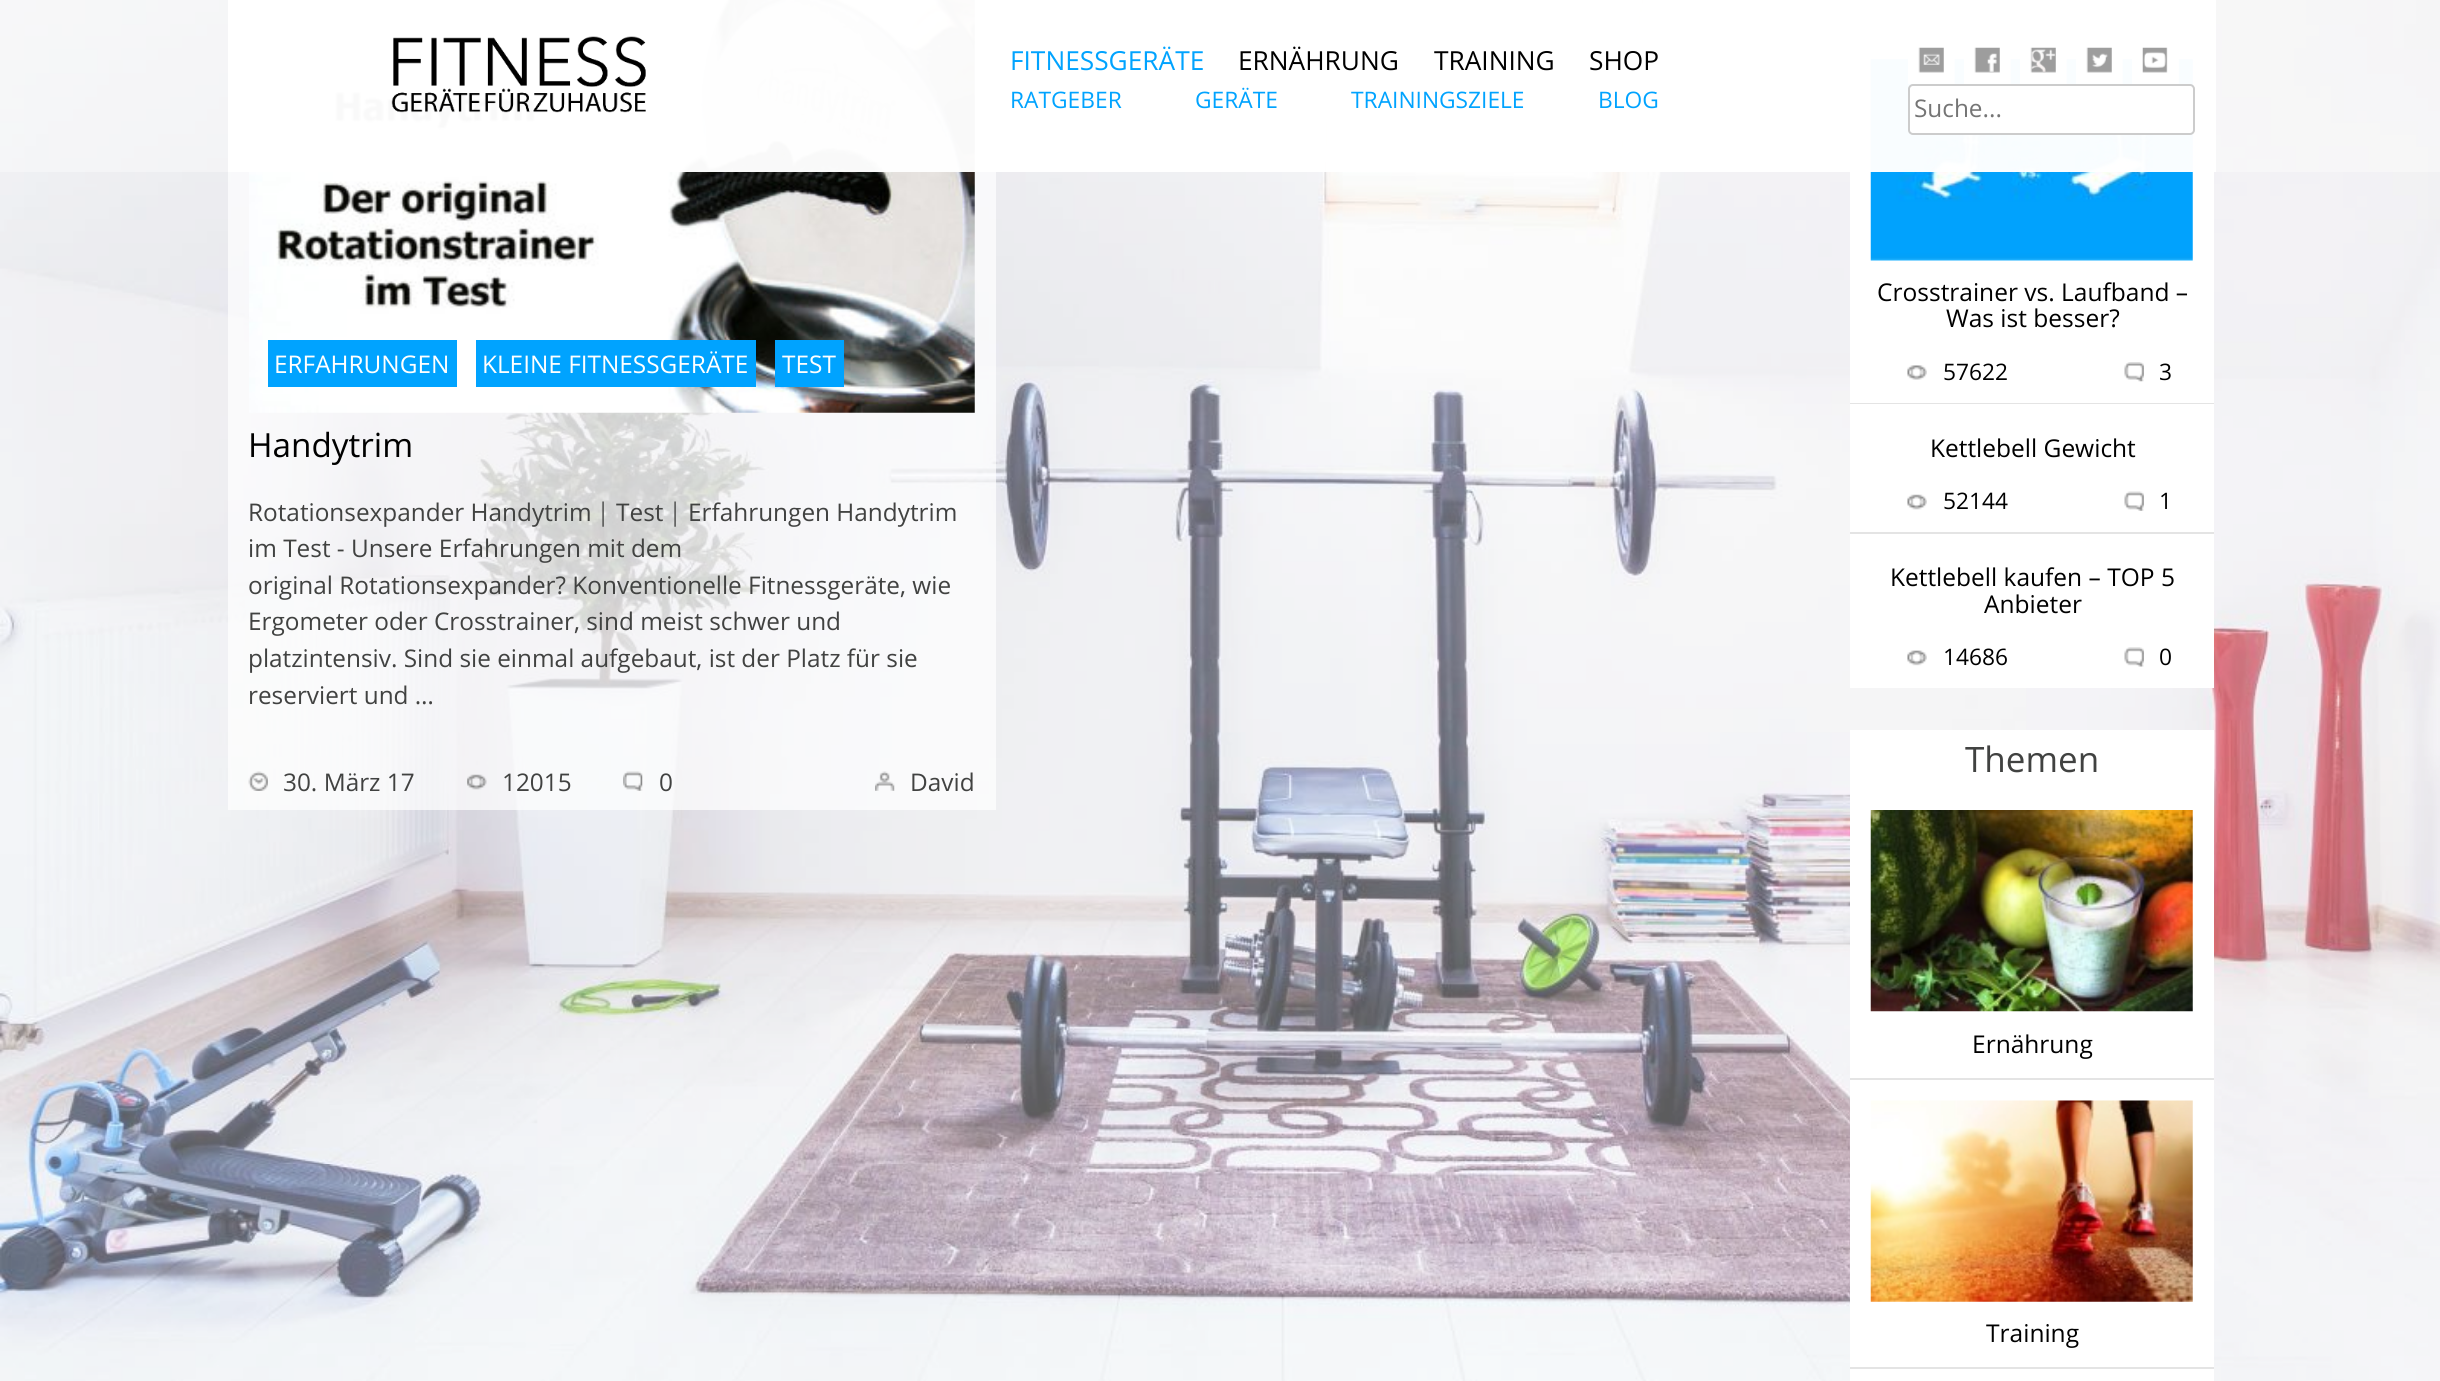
#include <cairo/cairo.h>
#include <math.h>
#include <stddef.h>

static cairo_t *cr;

static void use_color(int r, int g, int b) {
  cairo_set_source_rgb(cr, r / 255.0, g / 255.0, b / 255.0);
}

static void text(double x, double y, const char *s, const char *family, double size, int italic, int bold, int r, int g, int b) {
  cairo_select_font_face(cr, family, italic ? CAIRO_FONT_SLANT_ITALIC : CAIRO_FONT_SLANT_NORMAL,
    bold ? CAIRO_FONT_WEIGHT_BOLD : CAIRO_FONT_WEIGHT_NORMAL);
  cairo_set_font_size(cr, size);
  use_color(r, g, b);
  cairo_move_to(cr, x, y);
  cairo_show_text(cr, s);
}

static void box(double x, double y, double w, double h, int r, int g, int b) {
  use_color(r, g, b);
  cairo_rectangle(cr, x, y, w, h);
  cairo_fill(cr);
}

static void round_rect(double x, double y, double w, double h, double r) {
  cairo_new_sub_path(cr);
  cairo_arc(cr, x + w - r, y + h - r, r, 0, M_PI / 2);
  cairo_arc(cr, x + r, y + h - r, r, M_PI / 2, M_PI);
  cairo_arc(cr, x + r, y + r, r, M_PI, 1.5 * M_PI);
  cairo_arc(cr, x + w - r, y + r, r, 1.5 * M_PI, 2 * M_PI);
  cairo_close_path(cr);
}

static void picture(const char *path, double x, double y, double w, double h) {
  cairo_surface_t *image = cairo_image_surface_create_from_png(path);
  cairo_save(cr);
  cairo_set_source_surface(cr, image, x, y);
  cairo_rectangle(cr, x, y, w, h);
  cairo_fill(cr);
  cairo_restore(cr);
  cairo_surface_destroy(image);
}

static void draw(void) {
  use_color(255, 255, 255);
  cairo_paint(cr);
  picture("img_01.png", 0, 0, 2440, 1381);
  cairo_set_source_rgba(cr, 1, 1, 1, 0.7);
  cairo_rectangle(cr, 228, 0, 768, 810);
  cairo_fill(cr);
  picture("img_08.png", 249, 0, 726, 413);
  box(1850, 0, 364, 403, 255, 255, 255);
  picture("img_13.png", 1870, 59, 323, 202);
  cairo_set_source_rgba(cr, 1, 1, 1, 0.35);
  cairo_rectangle(cr, 0, 0, 2440, 172);
  cairo_fill(cr);
  cairo_set_source_rgba(cr, 1, 1, 1, 0.96);
  cairo_rectangle(cr, 228, 0, 1988, 172);
  cairo_fill(cr);
  picture("img_02.png", 391, 36, 255, 77);
  picture("img_03.png", 1908, 47, 47, 37);
  picture("img_04.png", 1964, 47, 47, 37);
  picture("img_05.png", 2020, 47, 47, 37);
  picture("img_06.png", 2076, 47, 47, 37);
  picture("img_07.png", 2132, 47, 47, 37);
  use_color(255, 255, 255);
  round_rect(1909, 85, 285, 49, 4);
  cairo_fill_preserve(cr);
  use_color(204, 204, 204);
  cairo_stroke(cr);
  box(268, 340, 189, 47, 0, 163, 255);
  box(476, 340, 280, 47, 0, 163, 255);
  box(775, 340, 69, 47, 0, 163, 255);
  picture("img_09.png", 248, 771, 20, 20);
  picture("img_10.png", 467, 774, 20, 16);
  picture("img_11.png", 623, 771, 20, 20);
  picture("img_12.png", 875, 771, 20, 20);
  box(1850, 403, 364, 1, 228, 228, 228);
  picture("img_14.png", 1907, 365, 20, 15);
  picture("img_15.png", 2124, 362, 20, 20);
  box(1850, 404, 364, 128, 255, 255, 255);
  box(1850, 532, 364, 2, 228, 228, 228);
  picture("img_16.png", 1907, 494, 20, 16);
  picture("img_17.png", 2124, 491, 20, 20);
  box(1850, 534, 364, 154, 255, 255, 255);
  picture("img_18.png", 1907, 650, 20, 16);
  picture("img_19.png", 2124, 647, 20, 20);
  box(1850, 730, 364, 348, 255, 255, 255);
  box(1850, 1078, 364, 2, 228, 228, 228);
  picture("img_20.png", 1870, 810, 323, 202);
  box(1850, 1080, 364, 287, 255, 255, 255);
  box(1850, 1367, 364, 2, 228, 228, 228);
  picture("img_21.png", 1870, 1100, 323, 202);
  box(1850, 1369, 364, 12, 255, 255, 255);
  text(1010, 70, "FITNESSGERÄTE", "Open Sans", 26.25, 0, 0, 0, 163, 255);
  text(1238, 70, "ERNÄHRUNG", "Open Sans", 26.25, 0, 0, 0, 0, 0);
  text(1434, 70, "TRAINING", "Open Sans", 26.25, 0, 0, 0, 0, 0);
  text(1589, 70, "SHOP", "Open Sans", 26.25, 0, 0, 0, 0, 0);
  text(1010, 108, "RATGEBER", "Open Sans", 22.75, 0, 0, 0, 163, 255);
  text(1195, 108, "GERÄTE", "Open Sans", 22.75, 0, 0, 0, 163, 255);
  text(1351, 108, "TRAININGSZIELE", "Open Sans", 22.75, 0, 0, 0, 163, 255);
  text(1598, 108, "BLOG", "Open Sans", 22.75, 0, 0, 0, 163, 255);
  text(1914, 117, "Suche...", "Open Sans", 24.35, 0, 0, 117, 117, 117);
  text(274, 373, "ERFAHRUNGEN", "Open Sans", 24.35, 0, 0, 255, 255, 255);
  text(482, 373, "KLEINE FITNESSGERÄTE", "Open Sans", 24.35, 0, 0, 255, 255, 255);
  text(782, 373, "TEST", "Open Sans", 24.35, 0, 0, 255, 255, 255);
  text(248, 457, "Handytrim", "Open Sans", 33.25, 0, 0, 0, 0, 0);
  text(248, 521, "Rotationsexpander Handytrim", "Open Sans", 24.35, 0, 0, 65, 66, 65);
  text(597, 521, "│", "Carlito", 24.35, 0, 0, 65, 66, 65);
  text(616, 521, "Test", "Open Sans", 24.35, 0, 0, 65, 66, 65);
  text(669, 521, "│", "Carlito", 24.35, 0, 0, 65, 66, 65);
  text(688, 521, "Erfahrungen Handytrim", "Open Sans", 24.35, 0, 0, 65, 66, 65);
  text(248, 557, "im Test - Unsere Erfahrungen mit dem", "Open Sans", 24.35, 0, 0, 65, 66, 65);
  text(248, 594, "original Rotationsexpander? Konventionelle Fitnessgeräte, wie", "Open Sans", 24.35, 0, 0, 65, 66, 65);
  text(248, 630, "Ergometer oder Crosstrainer, sind meist schwer und", "Open Sans", 24.35, 0, 0, 65, 66, 65);
  text(248, 667, "platzintensiv. Sind sie einmal aufgebaut, ist der Platz für sie", "Open Sans", 24.35, 0, 0, 65, 66, 65);
  text(248, 704, "reserviert und …", "Open Sans", 24.35, 0, 0, 65, 66, 65);
  text(283, 791, "30. März 17", "Open Sans", 24.35, 0, 0, 65, 66, 65);
  text(502, 791, "12015", "Open Sans", 24.35, 0, 0, 65, 66, 65);
  text(659, 791, "0", "Open Sans", 24.35, 0, 0, 65, 66, 65);
  text(910, 791, "David", "Open Sans", 24.35, 0, 0, 65, 66, 65);
  text(1877, 301, "Crosstrainer vs. Laufband –", "Open Sans", 24.5, 0, 0, 0, 0, 0);
  text(1946, 327, "Was ist besser?", "Open Sans", 24.5, 0, 0, 0, 0, 0);
  text(1943, 380, "57622", "Open Sans", 22.75, 0, 0, 0, 0, 0);
  text(2159, 380, "3", "Open Sans", 22.75, 0, 0, 0, 0, 0);
  text(1930, 457, "Kettlebell Gewicht", "Open Sans", 24.5, 0, 0, 0, 0, 0);
  text(1943, 509, "52144", "Open Sans", 22.75, 0, 0, 0, 0, 0);
  text(2159, 509, "1", "Open Sans", 22.75, 0, 0, 0, 0, 0);
  text(1890, 586, "Kettlebell kaufen – TOP 5", "Open Sans", 24.5, 0, 0, 0, 0, 0);
  text(1984, 613, "Anbieter", "Open Sans", 24.5, 0, 0, 0, 0, 0);
  text(1943, 665, "14686", "Open Sans", 22.75, 0, 0, 0, 0, 0);
  text(2159, 665, "0", "Open Sans", 22.75, 0, 0, 0, 0, 0);
  text(1965, 772, "Themen", "Open Sans", 35, 0, 0, 65, 66, 65);
  text(1972, 1053, "Ernährung", "Open Sans", 24.5, 0, 0, 0, 0, 0);
  text(1986, 1342, "Training", "Open Sans", 24.5, 0, 0, 0, 0, 0);
}

int main(void) {
  cairo_surface_t *surface = cairo_image_surface_create(CAIRO_FORMAT_RGB24, 2440, 1381);
  cr = cairo_create(surface);
  cairo_font_options_t *options = cairo_font_options_create();
  cairo_font_options_set_hint_metrics(options, CAIRO_HINT_METRICS_OFF);
  cairo_font_options_set_hint_style(options, CAIRO_HINT_STYLE_NONE);
  cairo_set_font_options(cr, options);
  cairo_set_miter_limit(cr, 4);
  draw();
  cairo_surface_write_to_png(surface, "out.png");
  cairo_font_options_destroy(options);
  cairo_destroy(cr);
  cairo_surface_destroy(surface);
  return 0;
}
